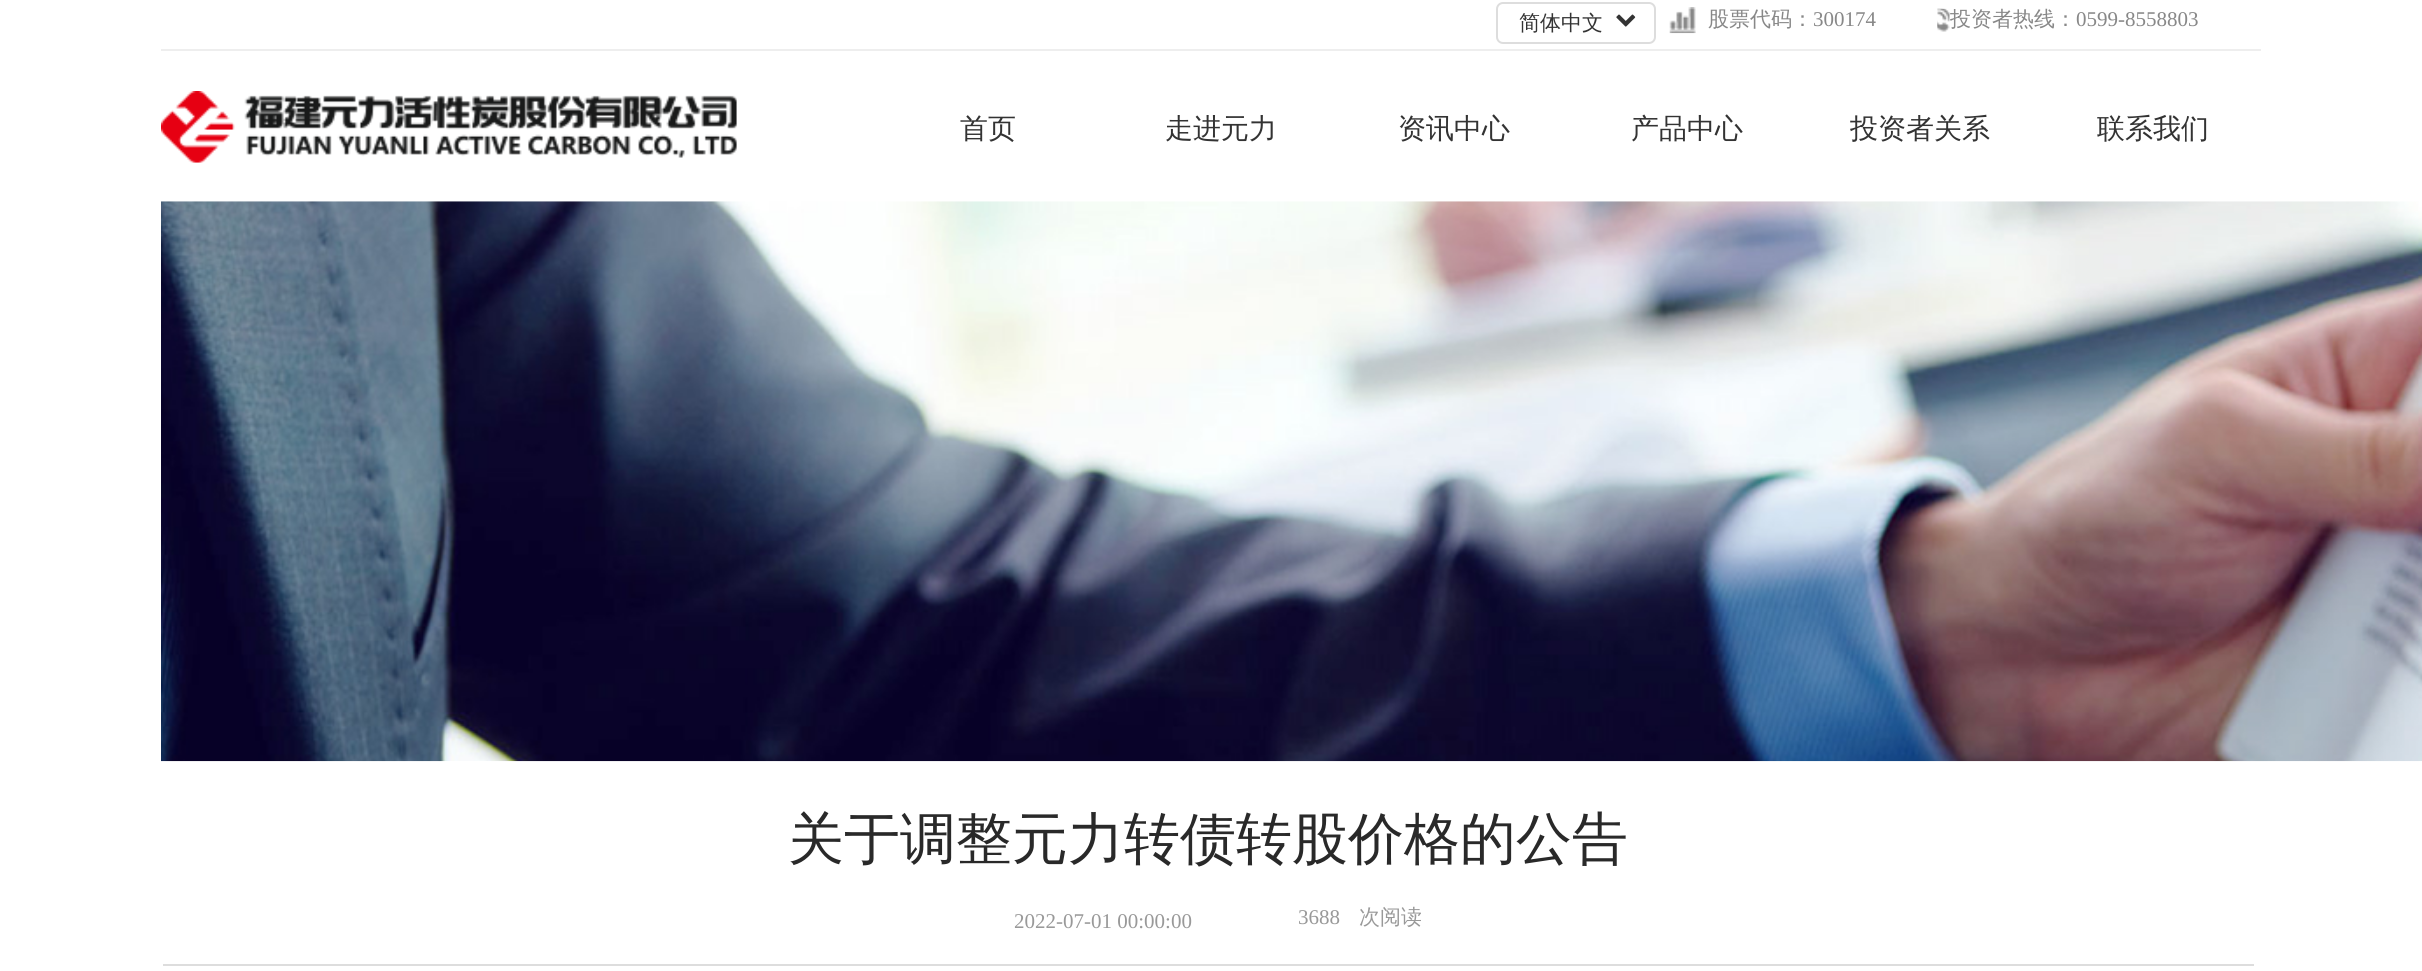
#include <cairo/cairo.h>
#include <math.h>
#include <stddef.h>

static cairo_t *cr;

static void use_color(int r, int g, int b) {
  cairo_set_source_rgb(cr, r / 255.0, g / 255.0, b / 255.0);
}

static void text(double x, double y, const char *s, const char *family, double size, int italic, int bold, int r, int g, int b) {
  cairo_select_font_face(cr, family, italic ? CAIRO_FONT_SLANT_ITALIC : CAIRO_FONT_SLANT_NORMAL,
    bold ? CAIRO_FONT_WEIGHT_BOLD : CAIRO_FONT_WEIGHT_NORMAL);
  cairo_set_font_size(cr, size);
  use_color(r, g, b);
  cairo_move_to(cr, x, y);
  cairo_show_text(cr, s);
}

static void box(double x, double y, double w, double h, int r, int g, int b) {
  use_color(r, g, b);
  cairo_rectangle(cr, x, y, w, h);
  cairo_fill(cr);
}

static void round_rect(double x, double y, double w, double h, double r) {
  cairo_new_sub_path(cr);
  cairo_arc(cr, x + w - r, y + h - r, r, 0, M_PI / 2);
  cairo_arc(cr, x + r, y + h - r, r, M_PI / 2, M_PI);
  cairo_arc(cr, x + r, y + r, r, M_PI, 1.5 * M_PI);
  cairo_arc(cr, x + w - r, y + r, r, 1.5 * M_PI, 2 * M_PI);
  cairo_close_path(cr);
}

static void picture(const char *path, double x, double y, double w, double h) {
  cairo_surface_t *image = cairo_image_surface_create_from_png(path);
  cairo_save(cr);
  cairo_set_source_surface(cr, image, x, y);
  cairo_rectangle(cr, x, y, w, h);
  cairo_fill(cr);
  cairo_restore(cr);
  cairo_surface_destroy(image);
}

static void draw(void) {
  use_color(255, 255, 255);
  cairo_paint(cr);
  picture("img_01.png", 1669, 7, 27, 27);
  round_rect(1497, 3, 158, 40, 6);
  use_color(221, 221, 221);
  cairo_stroke(cr);
  picture("img_02.png", 1616, 14, 20, 13);
  box(161, 49, 2100, 2, 238, 238, 238);
  picture("img_04.png", 161, 91, 576, 72);
  picture("img_05.png", 161, 201, 2261, 561);
  box(163, 964, 2091, 2, 221, 221, 221);
  text(1708, 26, "股票代码：", "WenQuanYi Zen Hei Medium", 21, 0, 0, 136, 136, 136);
  text(1813, 26, "300174", "Liberation Serif", 21, 0, 0, 136, 136, 136);
  text(1950, 26, "投资者热线：", "WenQuanYi Zen Hei Medium", 21, 0, 0, 136, 136, 136);
  text(2076, 26, "0599-8558803", "Liberation Serif", 21, 0, 0, 136, 136, 136);
  text(1519, 30, "简体中文", "WenQuanYi Zen Hei Medium", 21, 0, 0, 51, 51, 51);
  picture("img_03.png", 1937, 8, 13, 24);
  text(960, 138, "首页", "WenQuanYi Zen Hei Medium", 28, 0, 0, 51, 51, 51);
  text(1165, 138, "走进元力", "WenQuanYi Zen Hei Medium", 28, 0, 0, 51, 51, 51);
  text(1398, 138, "资讯中心", "WenQuanYi Zen Hei Medium", 28, 0, 0, 51, 51, 51);
  text(1631, 138, "产品中心", "WenQuanYi Zen Hei Medium", 28, 0, 0, 51, 51, 51);
  text(1850, 138, "投资者关系", "WenQuanYi Zen Hei Medium", 28, 0, 0, 51, 51, 51);
  text(2097, 138, "联系我们", "WenQuanYi Zen Hei Medium", 28, 0, 0, 51, 51, 51);
  text(788, 858, "关于调整元力转债转股价格的公告", "WenQuanYi Zen Hei Medium", 56, 0, 0, 41, 41, 41);
  text(1014, 928, "2022-07-01 00:00:00", "Liberation Serif", 21, 0, 0, 153, 153, 153);
  cairo_save(cr);
  cairo_rectangle(cr, 1299, 901, 50, 34);
  cairo_clip(cr);
  text(1298, 924, "3688", "Liberation Serif", 21, 0, 0, 153, 153, 153);
  cairo_restore(cr);
  text(1359, 924, "次阅读", "WenQuanYi Zen Hei Medium", 21, 0, 0, 153, 153, 153);
}

int main(void) {
  cairo_surface_t *surface = cairo_image_surface_create(CAIRO_FORMAT_RGB24, 2422, 971);
  cr = cairo_create(surface);
  cairo_font_options_t *options = cairo_font_options_create();
  cairo_font_options_set_hint_metrics(options, CAIRO_HINT_METRICS_OFF);
  cairo_font_options_set_hint_style(options, CAIRO_HINT_STYLE_NONE);
  cairo_set_font_options(cr, options);
  cairo_set_miter_limit(cr, 4);
  draw();
  cairo_surface_write_to_png(surface, "out.png");
  cairo_font_options_destroy(options);
  cairo_destroy(cr);
  cairo_surface_destroy(surface);
  return 0;
}
